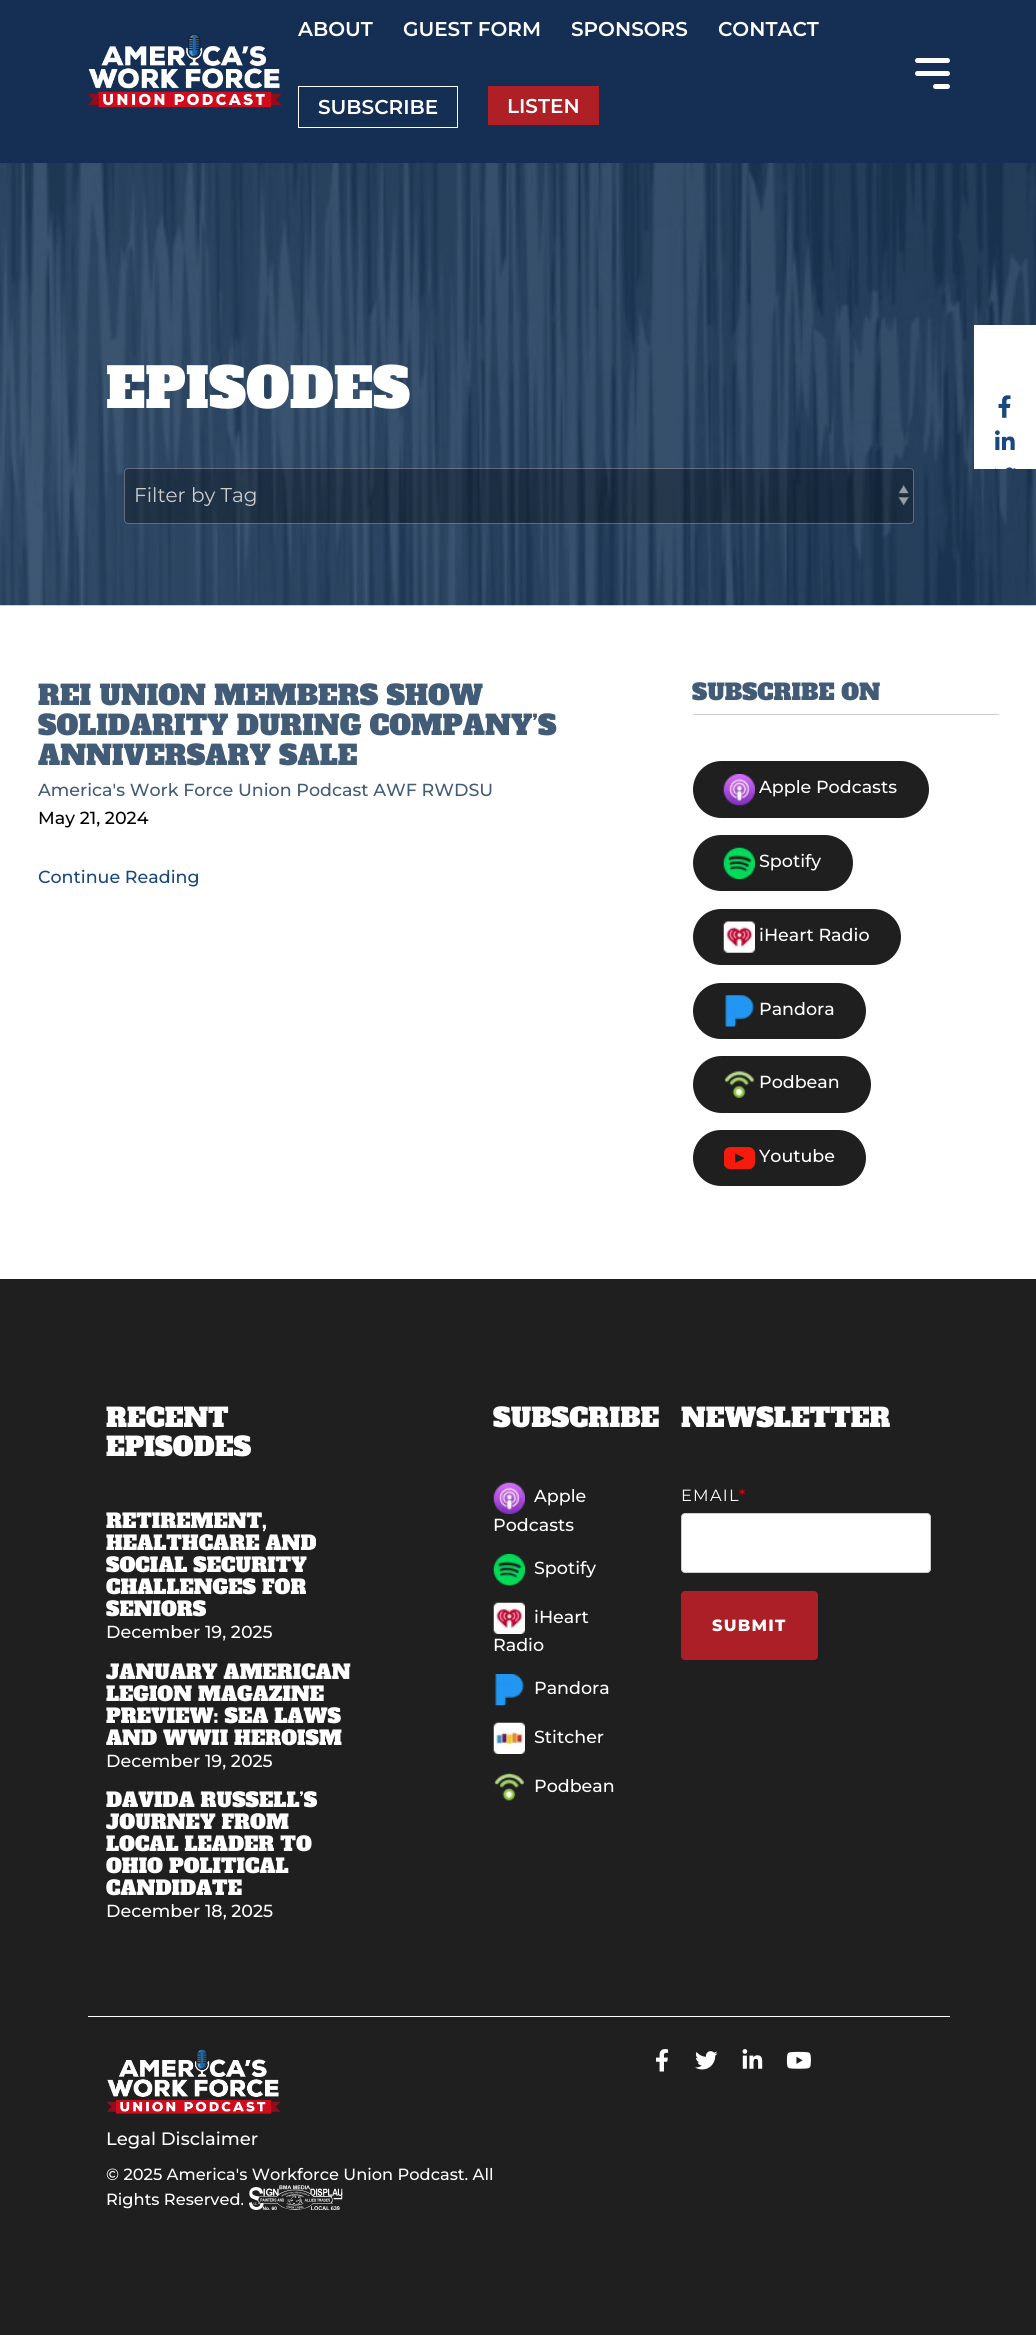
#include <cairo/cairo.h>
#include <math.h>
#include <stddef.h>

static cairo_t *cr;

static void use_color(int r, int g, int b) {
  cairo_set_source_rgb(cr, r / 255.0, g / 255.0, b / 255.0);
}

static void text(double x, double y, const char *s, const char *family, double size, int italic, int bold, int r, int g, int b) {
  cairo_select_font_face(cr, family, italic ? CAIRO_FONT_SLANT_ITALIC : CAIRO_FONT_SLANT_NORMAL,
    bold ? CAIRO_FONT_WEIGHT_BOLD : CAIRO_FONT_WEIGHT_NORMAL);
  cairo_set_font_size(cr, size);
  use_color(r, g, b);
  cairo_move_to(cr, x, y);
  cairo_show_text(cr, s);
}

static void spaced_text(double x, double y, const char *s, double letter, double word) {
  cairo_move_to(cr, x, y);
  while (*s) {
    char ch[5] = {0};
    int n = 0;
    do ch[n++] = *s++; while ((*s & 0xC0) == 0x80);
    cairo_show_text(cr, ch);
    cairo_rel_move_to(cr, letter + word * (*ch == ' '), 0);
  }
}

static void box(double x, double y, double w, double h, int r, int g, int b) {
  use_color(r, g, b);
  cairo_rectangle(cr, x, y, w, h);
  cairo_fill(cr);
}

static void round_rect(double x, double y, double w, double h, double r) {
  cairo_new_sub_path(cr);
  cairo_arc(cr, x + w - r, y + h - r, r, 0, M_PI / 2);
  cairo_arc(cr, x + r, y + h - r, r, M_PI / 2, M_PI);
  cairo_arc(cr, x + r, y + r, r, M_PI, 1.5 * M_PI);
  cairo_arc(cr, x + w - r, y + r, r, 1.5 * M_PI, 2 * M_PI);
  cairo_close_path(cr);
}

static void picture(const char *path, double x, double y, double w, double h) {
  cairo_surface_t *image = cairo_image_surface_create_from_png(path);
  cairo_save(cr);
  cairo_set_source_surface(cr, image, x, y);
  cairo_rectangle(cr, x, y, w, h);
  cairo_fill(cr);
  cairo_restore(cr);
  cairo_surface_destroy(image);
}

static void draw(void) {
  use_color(255, 255, 255);
  cairo_paint(cr);
  box(0, 0, 1036, 163, 20, 46, 84);
  picture("img_01.png", 87, 34, 195, 74);
  cairo_rectangle(cr, 298.5, 86.5, 159, 41);
  use_color(255, 255, 255);
  cairo_set_line_width(cr, 1);
  cairo_stroke(cr);
  box(488, 86, 111, 39, 174, 31, 38);
  use_color(255, 255, 255);
  round_rect(915, 58, 35, 5, 2.5);
  cairo_fill(cr);
  round_rect(915, 71, 35, 5, 2.5);
  cairo_fill(cr);
  round_rect(933, 84, 17, 5, 2.5);
  cairo_fill(cr);
  picture("img_05.png", 0, 163, 1036, 443);
  box(974, 325, 62, 144, 255, 255, 255);
  picture("img_02.png", 998, 395, 13, 23);
  picture("img_03.png", 995, 430, 20, 20);
  picture("img_04.png", 995, 467, 21, 2);
  cairo_set_source_rgba(cr, 0, 0, 0, 0.3);
  round_rect(124, 468, 790, 56, 4);
  cairo_fill(cr);
  picture("img_06.png", 898, 485, 11, 21);
  round_rect(124.5, 468.5, 789, 55, 3.5);
  cairo_set_source_rgba(cr, 1, 1, 1, 0.3);
  cairo_stroke(cr);
  box(693, 714, 306, 1, 204, 204, 204);
  use_color(30, 31, 30);
  round_rect(693, 761, 236, 57, 28.5);
  cairo_fill(cr);
  picture("img_07.png", 723, 774, 32, 32);
  round_rect(693, 835, 160, 56, 28);
  cairo_fill(cr);
  picture("img_08.png", 723, 847, 32, 32);
  round_rect(693, 909, 208, 56, 28);
  cairo_fill(cr);
  picture("img_09.png", 723, 921, 32, 32);
  round_rect(693, 983, 173, 56, 28);
  cairo_fill(cr);
  picture("img_10.png", 724, 995, 30, 32);
  round_rect(693, 1056, 178, 57, 28.5);
  cairo_fill(cr);
  picture("img_11.png", 724, 1070, 31, 29);
  round_rect(693, 1130, 173, 56, 28);
  cairo_fill(cr);
  picture("img_12.png", 724, 1147, 31, 23);
  box(0, 1279, 1036, 1056, 30, 31, 30);
  picture("img_13.png", 493, 1482, 32, 32);
  picture("img_14.png", 493, 1554, 32, 32);
  picture("img_15.png", 493, 1602, 32, 32);
  picture("img_16.png", 494, 1674, 30, 32);
  picture("img_17.png", 493, 1722, 32, 32);
  picture("img_18.png", 494, 1772, 30, 29);
  use_color(255, 255, 255);
  round_rect(681.5, 1513.5, 249, 59, 3.5);
  cairo_fill_preserve(cr);
  use_color(204, 204, 204);
  cairo_stroke(cr);
  use_color(173, 31, 39);
  round_rect(681, 1591, 137, 69, 4);
  cairo_fill(cr);
  box(88, 2016, 862, 1, 255, 255, 255);
  picture("img_19.png", 656, 2049, 13, 23);
  picture("img_20.png", 695, 2051, 23, 19);
  picture("img_21.png", 742, 2049, 21, 20);
  picture("img_22.png", 786, 2051, 25, 18);
  picture("img_23.png", 106, 2049, 175, 65);
  picture("img_24.png", 249, 2185, 94, 25);
  text(298, 36, "ABOUT", "Montserrat SemiBold", 20, 0, 0, 255, 255, 255);
  text(403, 36, "GUEST FORM", "Montserrat SemiBold", 20, 0, 0, 255, 255, 255);
  text(571, 36, "SPONSORS", "Montserrat SemiBold", 20, 0, 0, 255, 255, 255);
  text(718, 36, "CONTACT", "Montserrat SemiBold", 20, 0, 0, 255, 255, 255);
  text(318, 114, "SUBSCRIBE", "Montserrat SemiBold", 20, 0, 0, 255, 255, 255);
  text(507, 113, "LISTEN", "Montserrat SemiBold", 20, 0, 0, 255, 255, 255);
  text(106, 408, "EPISODES", "Alfa Slab One", 55, 0, 0, 255, 255, 255);
  text(134, 502, "Filter by Tag", "Montserrat Thin", 20, 0, 0, 204, 204, 204);
  text(38, 705, "REI UNION MEMBERS SHOW", "Alfa Slab One", 27.5, 0, 0, 66, 91, 118);
  cairo_save(cr);
  cairo_rectangle(cr, 38, 680, 633, 258);
  cairo_clip(cr);
  text(38, 735, "SOLIDARITY DURING COMPANY’S", "Alfa Slab One", 27.5, 0, 0, 66, 91, 118);
  text(38, 765, "ANNIVERSARY SALE", "Alfa Slab One", 27.5, 0, 0, 66, 91, 118);
  cairo_restore(cr);
  text(38, 796, "America's Work Force Union Podcast AWF RWDSU", "Montserrat Medium", 17.5, 0, 0, 66, 91, 118);
  text(38, 824, "May 21, 2024", "Montserrat Medium", 17.5, 0, 0, 0, 0, 0);
  text(38, 883, "Continue Reading", "Montserrat Medium", 17.5, 0, 0, 25, 72, 128);
  text(692, 700, "SUBSCRIBE ON", "Alfa Slab One", 22.5, 0, 0, 66, 91, 118);
  text(759, 793, "Apple Podcasts", "Montserrat Medium", 17.5, 0, 0, 255, 255, 255);
  text(759, 867, "Spotify", "Montserrat Medium", 17.5, 0, 0, 255, 255, 255);
  text(759, 941, "iHeart Radio", "Montserrat Medium", 17.5, 0, 0, 255, 255, 255);
  text(759, 1015, "Pandora", "Montserrat Medium", 17.5, 0, 0, 255, 255, 255);
  text(759, 1088, "Podbean", "Montserrat Medium", 17.5, 0, 0, 255, 255, 255);
  text(759, 1162, "Youtube", "Montserrat Medium", 17.5, 0, 0, 255, 255, 255);
  text(106, 1427, "RECENT", "Alfa Slab One", 26.25, 0, 0, 255, 255, 255);
  text(106, 1456, "EPISODES", "Alfa Slab One", 26.25, 0, 0, 255, 255, 255);
  text(106, 1528, "RETIREMENT,", "Alfa Slab One", 20, 0, 0, 255, 255, 255);
  text(106, 1550, "HEALTHCARE AND", "Alfa Slab One", 20, 0, 0, 255, 255, 255);
  text(106, 1572, "SOCIAL SECURITY", "Alfa Slab One", 20, 0, 0, 255, 255, 255);
  text(106, 1594, "CHALLENGES FOR", "Alfa Slab One", 20, 0, 0, 255, 255, 255);
  text(106, 1616, "SENIORS", "Alfa Slab One", 20, 0, 0, 255, 255, 255);
  text(106, 1638, "December 19, 2025", "Montserrat Medium", 17.5, 0, 0, 255, 255, 255);
  text(106, 1679, "JANUARY AMERICAN", "Alfa Slab One", 20, 0, 0, 255, 255, 255);
  text(106, 1701, "LEGION MAGAZINE", "Alfa Slab One", 20, 0, 0, 255, 255, 255);
  text(106, 1723, "PREVIEW: SEA LAWS", "Alfa Slab One", 20, 0, 0, 255, 255, 255);
  text(106, 1745, "AND WWII HEROISM", "Alfa Slab One", 20, 0, 0, 255, 255, 255);
  text(106, 1767, "December 19, 2025", "Montserrat Medium", 17.5, 0, 0, 255, 255, 255);
  text(106, 1807, "DAVIDA RUSSELL’S", "Alfa Slab One", 20, 0, 0, 255, 255, 255);
  text(106, 1829, "JOURNEY FROM", "Alfa Slab One", 20, 0, 0, 255, 255, 255);
  text(106, 1851, "LOCAL LEADER TO", "Alfa Slab One", 20, 0, 0, 255, 255, 255);
  text(106, 1873, "OHIO POLITICAL", "Alfa Slab One", 20, 0, 0, 255, 255, 255);
  text(106, 1895, "CANDIDATE", "Alfa Slab One", 20, 0, 0, 255, 255, 255);
  text(106, 1917, "December 18, 2025", "Montserrat Medium", 17.5, 0, 0, 255, 255, 255);
  text(493, 1427, "SUBSCRIBE", "Alfa Slab One", 26.25, 0, 0, 255, 255, 255);
  text(534, 1502, "Apple", "Montserrat Medium", 17.5, 0, 0, 255, 255, 255);
  text(493, 1531, "Podcasts", "Montserrat Medium", 17.5, 0, 0, 255, 255, 255);
  text(534, 1574, "Spotify", "Montserrat Medium", 17.5, 0, 0, 255, 255, 255);
  text(534, 1623, "iHeart", "Montserrat Medium", 17.5, 0, 0, 255, 255, 255);
  text(493, 1651, "Radio", "Montserrat Medium", 17.5, 0, 0, 255, 255, 255);
  text(534, 1694, "Pandora", "Montserrat Medium", 17.5, 0, 0, 255, 255, 255);
  text(534, 1743, "Stitcher", "Montserrat Medium", 17.5, 0, 0, 255, 255, 255);
  text(534, 1792, "Podbean", "Montserrat Medium", 17.5, 0, 0, 255, 255, 255);
  text(681, 1427, "NEWSLETTER", "Alfa Slab One", 26.25, 0, 0, 255, 255, 255);
  cairo_select_font_face(cr, "Montserrat Thin", CAIRO_FONT_SLANT_NORMAL, CAIRO_FONT_WEIGHT_NORMAL);
  cairo_set_font_size(cr, 16.25);
  spaced_text(681, 1501, "EMAIL", 1.25, 0);
  use_color(255, 0, 0);
  spaced_text(739, 1501, "*", 1.25, 0);
  cairo_select_font_face(cr, "Montserrat ExtraBold", CAIRO_FONT_SLANT_NORMAL, CAIRO_FONT_WEIGHT_NORMAL);
  use_color(255, 255, 255);
  spaced_text(712, 1631, "SUBMIT", 1.25, 0);
  text(106, 2145, "Legal Disclaimer", "Montserrat Medium", 18, 0, 0, 255, 255, 255);
  text(106, 2180, "© 2025 America's Workforce Union Podcast. All", "Montserrat Medium", 16.25, 0, 0, 255, 255, 255);
  text(106, 2205, "Rights Reserved.", "Montserrat Medium", 16.25, 0, 0, 255, 255, 255);
}

int main(void) {
  cairo_surface_t *surface = cairo_image_surface_create(CAIRO_FORMAT_RGB24, 1036, 2335);
  cr = cairo_create(surface);
  cairo_font_options_t *options = cairo_font_options_create();
  cairo_font_options_set_hint_metrics(options, CAIRO_HINT_METRICS_OFF);
  cairo_font_options_set_hint_style(options, CAIRO_HINT_STYLE_NONE);
  cairo_set_font_options(cr, options);
  cairo_set_miter_limit(cr, 4);
  draw();
  cairo_surface_write_to_png(surface, "out.png");
  cairo_font_options_destroy(options);
  cairo_destroy(cr);
  cairo_surface_destroy(surface);
  return 0;
}
